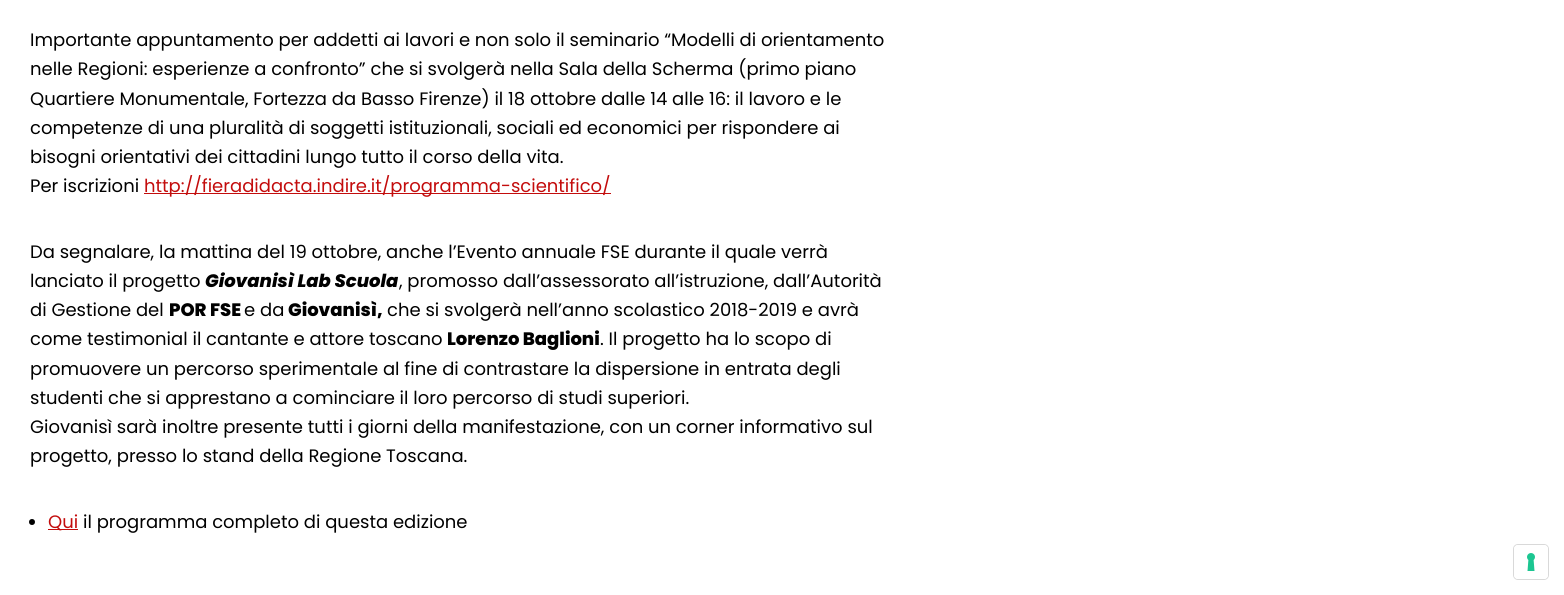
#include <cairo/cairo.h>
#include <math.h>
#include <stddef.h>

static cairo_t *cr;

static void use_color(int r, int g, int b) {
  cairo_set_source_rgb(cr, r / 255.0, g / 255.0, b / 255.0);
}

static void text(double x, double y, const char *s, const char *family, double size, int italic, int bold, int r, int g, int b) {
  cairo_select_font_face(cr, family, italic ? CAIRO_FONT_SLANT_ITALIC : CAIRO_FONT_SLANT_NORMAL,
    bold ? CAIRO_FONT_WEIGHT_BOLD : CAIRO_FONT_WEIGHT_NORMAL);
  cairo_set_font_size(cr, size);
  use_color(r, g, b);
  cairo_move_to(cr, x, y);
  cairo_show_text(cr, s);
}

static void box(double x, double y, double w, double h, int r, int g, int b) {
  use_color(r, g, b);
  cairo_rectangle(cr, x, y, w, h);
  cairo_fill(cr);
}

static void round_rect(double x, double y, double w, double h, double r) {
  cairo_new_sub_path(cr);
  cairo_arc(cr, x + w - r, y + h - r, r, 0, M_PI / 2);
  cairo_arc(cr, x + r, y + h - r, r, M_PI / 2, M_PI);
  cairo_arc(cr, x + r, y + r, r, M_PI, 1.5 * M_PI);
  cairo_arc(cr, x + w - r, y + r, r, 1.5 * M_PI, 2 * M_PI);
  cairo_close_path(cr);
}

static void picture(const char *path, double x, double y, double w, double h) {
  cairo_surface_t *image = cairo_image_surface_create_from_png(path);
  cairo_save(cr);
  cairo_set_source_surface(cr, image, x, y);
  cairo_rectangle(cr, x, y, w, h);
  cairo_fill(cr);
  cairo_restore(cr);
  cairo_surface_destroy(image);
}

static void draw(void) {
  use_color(255, 255, 255);
  cairo_paint(cr);
  box(144, 193, 467, 1, 195, 12, 12);
  use_color(0, 0, 0);
  cairo_arc(cr, 32, 522, 3, 0, 2 * M_PI);
  cairo_fill(cr);
  box(48, 529, 30, 1, 195, 12, 12);
  round_rect(1513.5, 544.5, 35, 35, 4.5);
  use_color(217, 217, 217);
  cairo_set_line_width(cr, 1);
  cairo_stroke(cr);
  use_color(255, 255, 255);
  round_rect(1514, 545, 34, 34, 4);
  cairo_fill(cr);
  picture("img_01.png", 1527, 553, 8, 18);
  text(30, 46, "Importante appuntamento per addetti ai lavori e non solo il seminario “Modelli di orientamento", "Poppins", 18, 0, 0, 0, 0, 0);
  text(30, 75, "nelle Regioni: esperienze a confronto” che si svolgerà nella Sala della Scherma (primo piano", "Poppins", 18, 0, 0, 0, 0, 0);
  text(30, 105, "Quartiere Monumentale, Fortezza da Basso Firenze) il 18 ottobre dalle 14 alle 16: il lavoro e le", "Poppins", 18, 0, 0, 0, 0, 0);
  text(30, 134, "competenze di una pluralità di soggetti istituzionali, sociali ed economici per rispondere ai", "Poppins", 18, 0, 0, 0, 0, 0);
  text(30, 163, "bisogni orientativi dei cittadini lungo tutto il corso della vita.", "Poppins", 18, 0, 0, 0, 0, 0);
  text(30, 192, "Per iscrizioni", "Poppins", 18, 0, 0, 0, 0, 0);
  text(144, 192, "http://fieradidacta.indire.it/programma-scientifico/", "Poppins", 18, 0, 0, 195, 12, 12);
  text(30, 258, "Da segnalare, la mattina del 19 ottobre, anche l’Evento annuale FSE durante il quale verrà", "Poppins", 18, 0, 0, 0, 0, 0);
  text(30, 287, "lanciato il progetto", "Poppins", 18, 0, 0, 0, 0, 0);
  text(205, 287, "Giovanisì Lab Scuola", "Poppins ExtraBold", 18, 1, 0, 0, 0, 0);
  text(399, 287, ", promosso dall’assessorato all’istruzione, dall’Autorità", "Poppins", 18, 0, 0, 0, 0, 0);
  text(30, 316, "di Gestione del", "Poppins", 18, 0, 0, 0, 0, 0);
  text(169, 316, "POR FSE", "Poppins ExtraBold", 18, 0, 0, 0, 0, 0);
  text(244, 316, "e da", "Poppins", 18, 0, 0, 0, 0, 0);
  text(288, 316, "Giovanisì,", "Poppins ExtraBold", 18, 0, 0, 0, 0, 0);
  text(387, 316, "che si svolgerà nell’anno scolastico 2018-2019 e avrà", "Poppins", 18, 0, 0, 0, 0, 0);
  text(30, 345, "come testimonial il cantante e attore toscano", "Poppins", 18, 0, 0, 0, 0, 0);
  text(447, 345, "Lorenzo Baglioni", "Poppins ExtraBold", 18, 0, 0, 0, 0, 0);
  text(600, 345, ". Il progetto ha lo scopo di", "Poppins", 18, 0, 0, 0, 0, 0);
  text(30, 375, "promuovere un percorso sperimentale al fine di contrastare la dispersione in entrata degli", "Poppins", 18, 0, 0, 0, 0, 0);
  text(30, 404, "studenti che si apprestano a cominciare il loro percorso di studi superiori.", "Poppins", 18, 0, 0, 0, 0, 0);
  text(30, 433, "Giovanisì sarà inoltre presente tutti i giorni della manifestazione, con un corner informativo sul", "Poppins", 18, 0, 0, 0, 0, 0);
  text(30, 462, "progetto, presso lo stand della Regione Toscana.", "Poppins", 18, 0, 0, 0, 0, 0);
  text(48, 528, "Qui", "Poppins", 18, 0, 0, 195, 12, 12);
  text(83, 528, "il programma completo di questa edizione", "Poppins", 18, 0, 0, 0, 0, 0);
}

int main(void) {
  cairo_surface_t *surface = cairo_image_surface_create(CAIRO_FORMAT_RGB24, 1564, 595);
  cr = cairo_create(surface);
  cairo_font_options_t *options = cairo_font_options_create();
  cairo_font_options_set_hint_metrics(options, CAIRO_HINT_METRICS_OFF);
  cairo_font_options_set_hint_style(options, CAIRO_HINT_STYLE_NONE);
  cairo_set_font_options(cr, options);
  cairo_set_miter_limit(cr, 4);
  draw();
  cairo_surface_write_to_png(surface, "out.png");
  cairo_font_options_destroy(options);
  cairo_destroy(cr);
  cairo_surface_destroy(surface);
  return 0;
}
